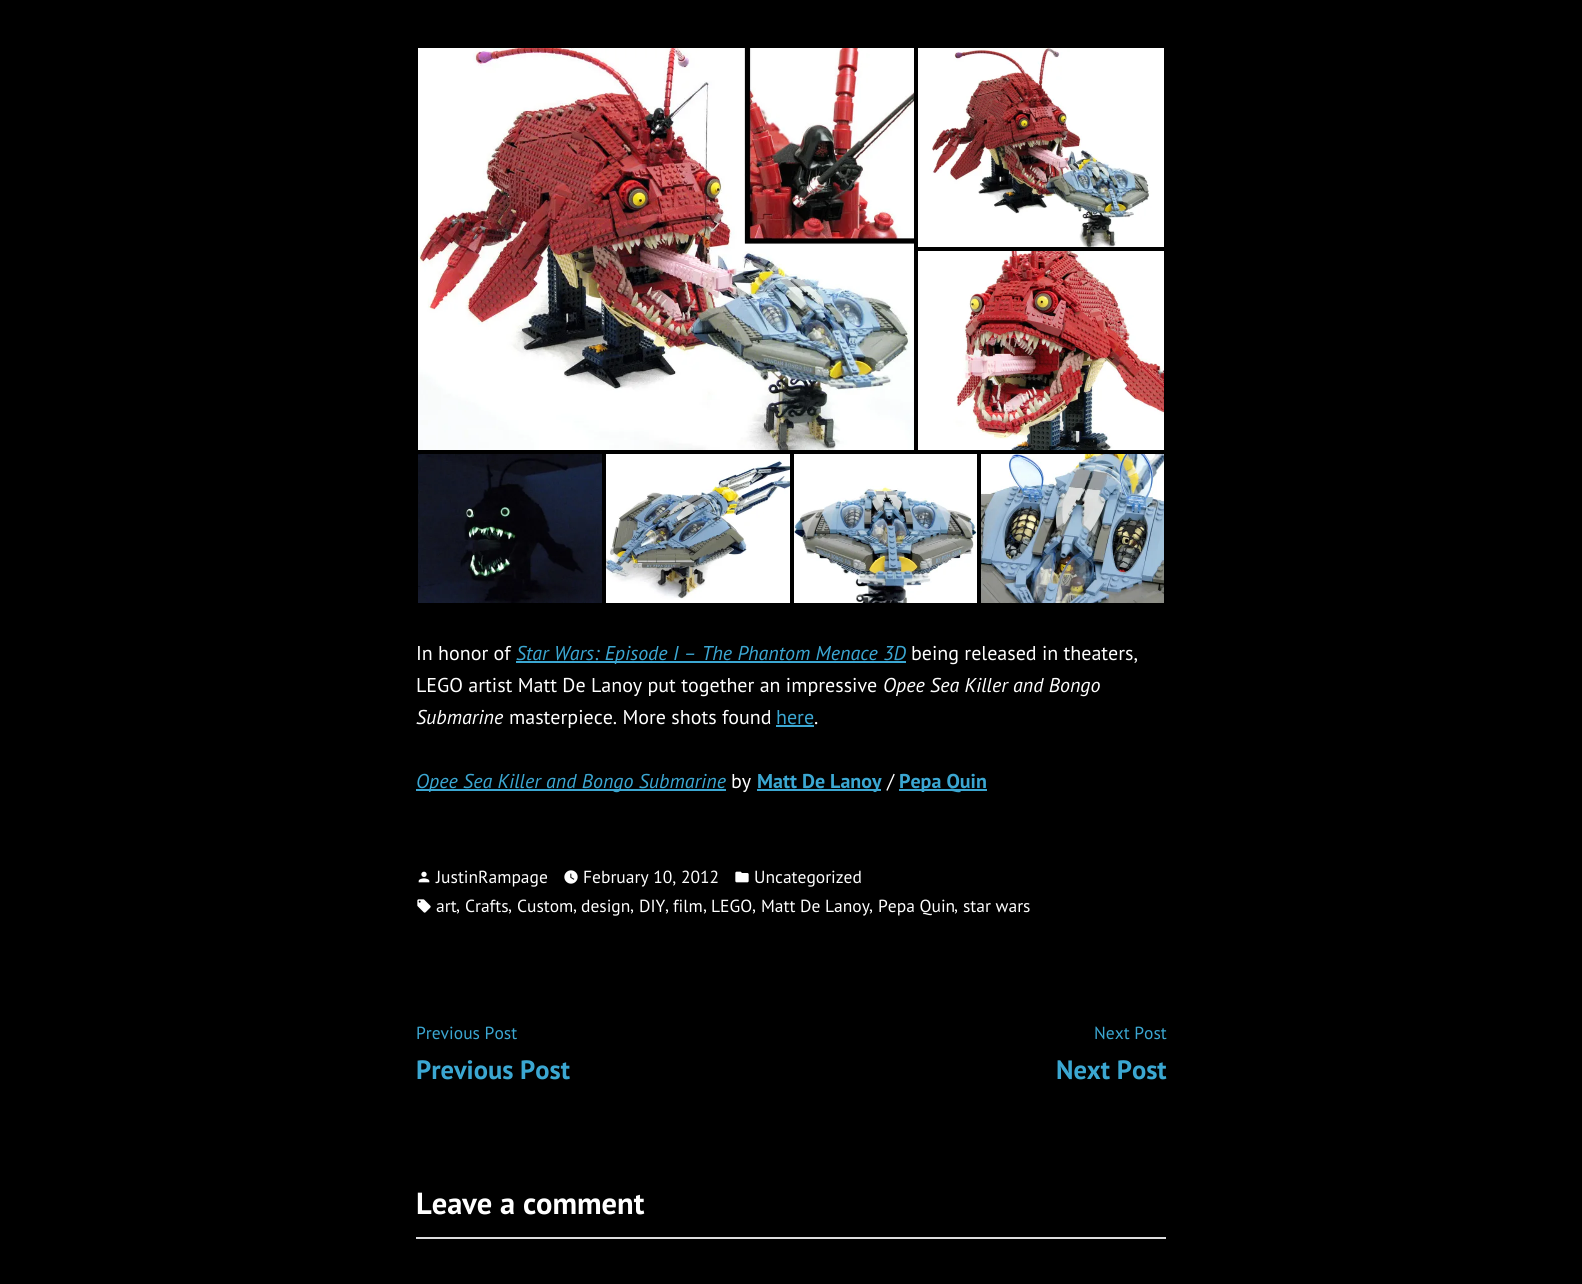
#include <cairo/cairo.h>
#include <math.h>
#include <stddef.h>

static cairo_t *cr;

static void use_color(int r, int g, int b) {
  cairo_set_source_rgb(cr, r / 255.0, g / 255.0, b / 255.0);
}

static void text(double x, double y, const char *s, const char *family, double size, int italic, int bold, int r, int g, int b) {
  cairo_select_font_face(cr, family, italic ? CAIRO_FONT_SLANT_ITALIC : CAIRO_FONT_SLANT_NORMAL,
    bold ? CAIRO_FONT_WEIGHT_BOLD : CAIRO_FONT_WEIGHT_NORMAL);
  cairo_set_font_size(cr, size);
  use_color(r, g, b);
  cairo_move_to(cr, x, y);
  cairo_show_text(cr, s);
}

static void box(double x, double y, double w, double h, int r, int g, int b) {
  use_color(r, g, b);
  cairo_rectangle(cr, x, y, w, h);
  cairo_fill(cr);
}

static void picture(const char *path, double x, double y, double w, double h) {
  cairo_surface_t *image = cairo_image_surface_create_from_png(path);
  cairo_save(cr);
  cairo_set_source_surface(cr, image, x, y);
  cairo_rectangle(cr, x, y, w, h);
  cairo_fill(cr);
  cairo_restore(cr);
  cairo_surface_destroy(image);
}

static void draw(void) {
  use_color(0, 0, 0);
  cairo_paint(cr);
  picture("img_01.png", 418, 48, 496, 402);
  picture("img_02.png", 918, 48, 246, 199);
  picture("img_03.png", 918, 251, 246, 199);
  picture("img_04.png", 418, 454, 184, 149);
  picture("img_05.png", 606, 454, 184, 149);
  picture("img_06.png", 794, 454, 183, 149);
  picture("img_07.png", 981, 454, 183, 149);
  box(516, 661, 390, 2, 59, 167, 210);
  box(776, 725, 38, 2, 59, 167, 210);
  box(416, 789, 310, 2, 59, 167, 210);
  box(757, 789, 124, 2, 59, 167, 210);
  box(899, 789, 88, 2, 59, 167, 210);
  picture("img_08.png", 418, 871, 12, 12);
  picture("img_09.png", 564, 870, 14, 14);
  picture("img_10.png", 735, 871, 14, 12);
  picture("img_11.png", 417, 899, 14, 14);
  box(416, 1237, 750, 2, 220, 220, 222);
  text(416, 660, "In honor of", "PT Sans", 20, 0, 0, 255, 255, 255);
  text(516, 660, "Star Wars: Episode I – The Phantom Menace 3D", "PT Sans", 20, 1, 0, 59, 167, 210);
  text(911, 660, "being released in theaters,", "PT Sans", 20, 0, 0, 255, 255, 255);
  text(416, 692, "LEGO artist Matt De Lanoy put together an impressive", "PT Sans", 20, 0, 0, 255, 255, 255);
  text(883, 692, "Opee Sea Killer and Bongo", "PT Sans", 20, 1, 0, 255, 255, 255);
  text(416, 724, "Submarine", "PT Sans", 20, 1, 0, 255, 255, 255);
  text(509, 724, "masterpiece. More shots found", "PT Sans", 20, 0, 0, 255, 255, 255);
  text(776, 724, "here", "PT Sans", 20, 0, 0, 59, 167, 210);
  text(814, 724, ".", "PT Sans", 20, 0, 0, 255, 255, 255);
  text(416, 788, "Opee Sea Killer and Bongo Submarine", "PT Sans", 20, 1, 0, 59, 167, 210);
  text(731, 788, "by", "PT Sans", 20, 0, 0, 255, 255, 255);
  text(757, 788, "Matt De Lanoy", "PT Sans", 20, 0, 1, 59, 167, 210);
  text(887, 788, "/", "PT Sans", 20, 0, 0, 255, 255, 255);
  text(899, 788, "Pepa Quin", "PT Sans", 20, 0, 1, 59, 167, 210);
  text(436, 883, "JustinRampage", "PT Sans", 17.5, 0, 0, 255, 255, 255);
  text(583, 883, "February 10, 2012", "PT Sans", 17.5, 0, 0, 255, 255, 255);
  text(754, 883, "Uncategorized", "PT Sans", 17.5, 0, 0, 255, 255, 255);
  text(436, 912, "art", "PT Sans", 17.5, 0, 0, 255, 255, 255);
  text(456, 911, ",", "PT Sans", 17.5, 0, 0, 255, 255, 255);
  text(465, 912, "Crafts", "PT Sans", 17.5, 0, 0, 255, 255, 255);
  text(508, 911, ",", "PT Sans", 17.5, 0, 0, 255, 255, 255);
  text(517, 912, "Custom", "PT Sans", 17.5, 0, 0, 255, 255, 255);
  text(573, 911, ",", "PT Sans", 17.5, 0, 0, 255, 255, 255);
  text(581, 912, "design", "PT Sans", 17.5, 0, 0, 255, 255, 255);
  text(630, 911, ",", "PT Sans", 17.5, 0, 0, 255, 255, 255);
  text(639, 912, "DIY", "PT Sans", 17.5, 0, 0, 255, 255, 255);
  text(665, 911, ",", "PT Sans", 17.5, 0, 0, 255, 255, 255);
  text(673, 912, "film", "PT Sans", 17.5, 0, 0, 255, 255, 255);
  text(703, 911, ",", "PT Sans", 17.5, 0, 0, 255, 255, 255);
  text(711, 912, "LEGO", "PT Sans", 17.5, 0, 0, 255, 255, 255);
  text(752, 911, ",", "PT Sans", 17.5, 0, 0, 255, 255, 255);
  text(761, 912, "Matt De Lanoy", "PT Sans", 17.5, 0, 0, 255, 255, 255);
  text(869, 911, ",", "PT Sans", 17.5, 0, 0, 255, 255, 255);
  text(878, 912, "Pepa Quin", "PT Sans", 17.5, 0, 0, 255, 255, 255);
  text(954, 911, ",", "PT Sans", 17.5, 0, 0, 255, 255, 255);
  text(963, 912, "star wars", "PT Sans", 17.5, 0, 0, 255, 255, 255);
  text(416, 1039, "Previous Post", "PT Sans", 17.5, 0, 0, 59, 167, 210);
  text(416, 1079, "Previous Post", "PT Sans", 26.5, 0, 1, 59, 167, 210);
  text(1094, 1039, "Next Post", "PT Sans", 17.5, 0, 0, 59, 167, 210);
  text(1056, 1079, "Next Post", "PT Sans", 26.5, 0, 1, 59, 167, 210);
  text(416, 1214, "Leave a comment", "PT Sans", 30.5, 0, 1, 255, 255, 255);
}

int main(void) {
  cairo_surface_t *surface = cairo_image_surface_create(CAIRO_FORMAT_RGB24, 1582, 1284);
  cr = cairo_create(surface);
  cairo_font_options_t *options = cairo_font_options_create();
  cairo_font_options_set_hint_metrics(options, CAIRO_HINT_METRICS_OFF);
  cairo_font_options_set_hint_style(options, CAIRO_HINT_STYLE_NONE);
  cairo_set_font_options(cr, options);
  cairo_set_miter_limit(cr, 4);
  draw();
  cairo_surface_write_to_png(surface, "out.png");
  cairo_font_options_destroy(options);
  cairo_destroy(cr);
  cairo_surface_destroy(surface);
  return 0;
}
